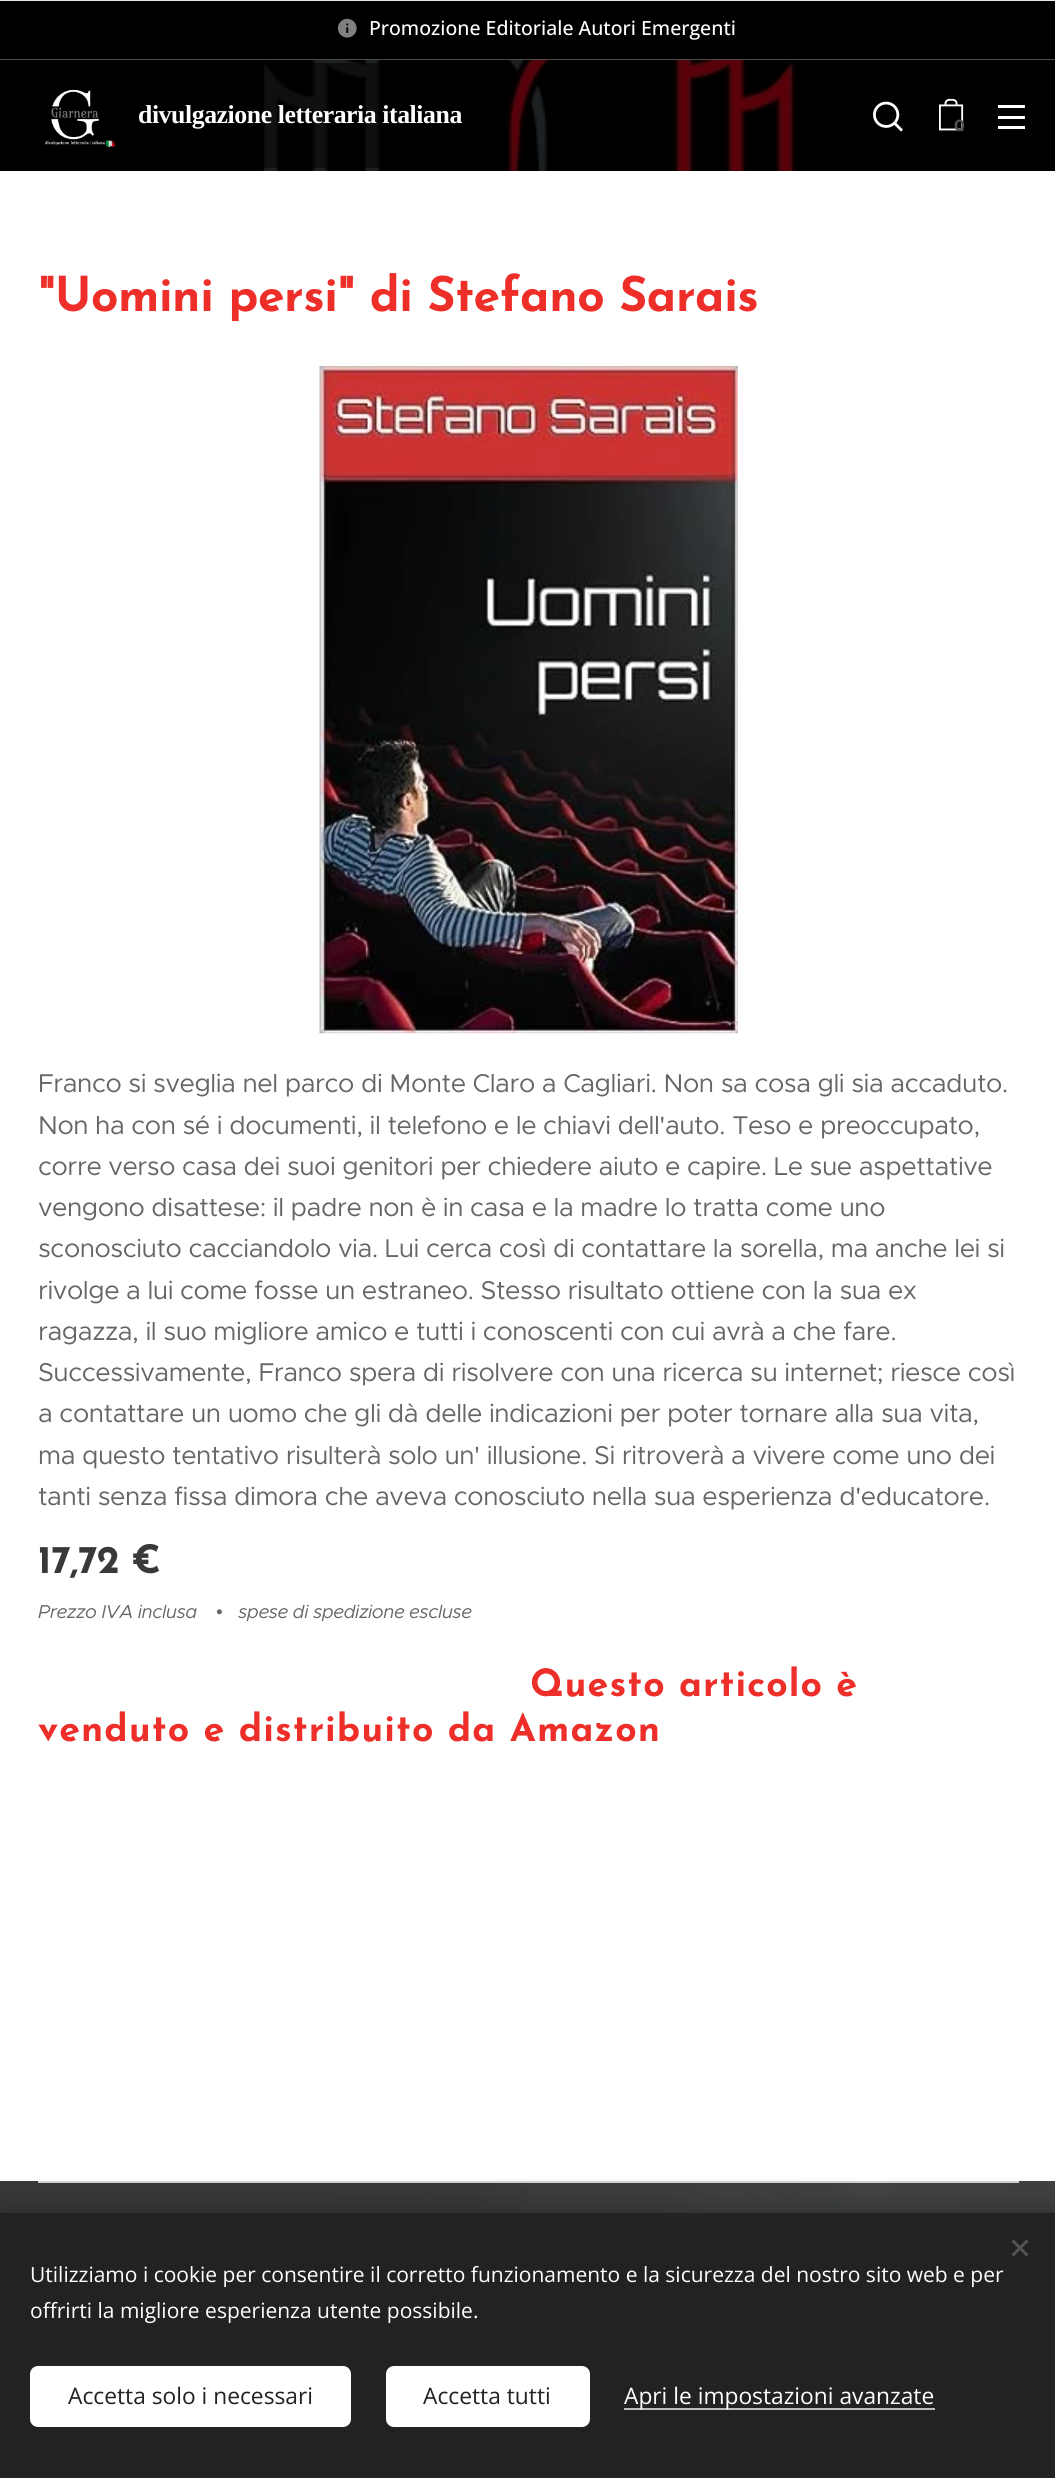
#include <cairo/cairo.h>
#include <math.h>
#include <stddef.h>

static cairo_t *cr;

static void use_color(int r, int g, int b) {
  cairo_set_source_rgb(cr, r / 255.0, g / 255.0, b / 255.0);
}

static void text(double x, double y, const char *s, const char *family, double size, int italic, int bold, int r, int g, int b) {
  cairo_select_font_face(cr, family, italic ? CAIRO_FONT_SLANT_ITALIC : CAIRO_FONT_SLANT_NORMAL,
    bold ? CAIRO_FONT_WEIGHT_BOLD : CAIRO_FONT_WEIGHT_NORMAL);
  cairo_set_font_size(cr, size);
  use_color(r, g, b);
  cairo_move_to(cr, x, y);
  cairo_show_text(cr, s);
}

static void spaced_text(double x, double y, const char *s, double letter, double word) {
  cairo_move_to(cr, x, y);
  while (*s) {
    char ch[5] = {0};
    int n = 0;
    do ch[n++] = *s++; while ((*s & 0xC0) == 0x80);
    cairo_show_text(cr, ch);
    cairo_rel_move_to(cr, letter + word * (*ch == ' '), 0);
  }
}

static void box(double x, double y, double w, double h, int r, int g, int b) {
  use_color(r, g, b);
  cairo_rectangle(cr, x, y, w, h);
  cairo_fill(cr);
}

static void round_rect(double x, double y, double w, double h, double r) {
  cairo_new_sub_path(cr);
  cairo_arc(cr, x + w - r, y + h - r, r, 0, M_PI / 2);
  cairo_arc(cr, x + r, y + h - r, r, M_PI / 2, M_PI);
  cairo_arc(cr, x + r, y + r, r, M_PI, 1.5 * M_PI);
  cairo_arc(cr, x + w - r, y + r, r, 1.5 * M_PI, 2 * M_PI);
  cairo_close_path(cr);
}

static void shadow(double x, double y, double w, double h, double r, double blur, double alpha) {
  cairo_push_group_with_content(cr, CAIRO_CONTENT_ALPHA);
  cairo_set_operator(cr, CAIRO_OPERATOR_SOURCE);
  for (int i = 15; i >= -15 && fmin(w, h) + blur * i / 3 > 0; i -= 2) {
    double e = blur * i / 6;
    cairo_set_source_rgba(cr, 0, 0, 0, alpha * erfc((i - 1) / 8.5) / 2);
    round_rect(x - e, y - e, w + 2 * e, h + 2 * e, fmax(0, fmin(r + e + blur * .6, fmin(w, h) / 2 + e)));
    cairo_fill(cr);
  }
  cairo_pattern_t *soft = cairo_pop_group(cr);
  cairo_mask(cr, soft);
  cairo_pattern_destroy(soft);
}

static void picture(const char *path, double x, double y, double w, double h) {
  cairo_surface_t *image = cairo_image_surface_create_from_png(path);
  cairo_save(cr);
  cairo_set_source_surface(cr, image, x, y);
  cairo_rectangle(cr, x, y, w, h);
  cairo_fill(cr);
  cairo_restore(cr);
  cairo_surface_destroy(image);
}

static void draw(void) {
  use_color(255, 255, 255);
  cairo_paint(cr);
  box(0, 1, 1055, 58, 0, 0, 0);
  box(0, 59, 1055, 1, 77, 77, 77);
  picture("img_01.png", 337, 18, 20, 20);
  picture("img_02.png", 0, 60, 1055, 111);
  cairo_set_source_rgba(cr, 0, 0, 0, 0.5);
  cairo_rectangle(cr, 263, 63, 117, 105);
  cairo_fill(cr);
  picture("img_03.png", 45, 89, 71, 59);
  box(0, 0, 1055, 1, 232, 232, 232);
  picture("img_04.png", 873, 101, 30, 31);
  picture("img_05.png", 939, 98, 25, 33);
  box(998, 116, 27, 3, 255, 255, 255);
  box(998, 105, 27, 3, 255, 255, 255);
  box(998, 126, 27, 3, 255, 255, 255);
  picture("img_06.png", 319, 366, 419, 668);
  picture("img_07.png", 0, 2181, 1055, 32);
  box(38, 2181, 981, 2, 212, 212, 212);
  use_color(0, 0, 0);
  shadow(0, 2213, 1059, 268, 0, 19, 0.33);
  box(0, 2213, 1055, 265, 34, 34, 34);
  use_color(85, 85, 85);
  cairo_new_path(cr);
  cairo_move_to(cr, 1011.5, 2254.5);
  cairo_line_to(cr, 1026.5, 2239.5);
  cairo_line_to(cr, 1028.5, 2241.5);
  cairo_line_to(cr, 1013.5, 2256.5);
  cairo_close_path(cr);
  cairo_fill(cr);
  cairo_new_path(cr);
  cairo_move_to(cr, 1013.5, 2239.5);
  cairo_line_to(cr, 1028.5, 2254.5);
  cairo_line_to(cr, 1026.5, 2256.5);
  cairo_line_to(cr, 1011.5, 2241.5);
  cairo_close_path(cr);
  cairo_fill(cr);
  use_color(255, 255, 255);
  round_rect(30, 2366, 321, 61, 8);
  cairo_fill(cr);
  round_rect(386, 2366, 204, 61, 8);
  cairo_fill(cr);
  box(624, 2408, 311, 2, 189, 189, 189);
  text(369, 35, "Promozione Editoriale Autori Emergenti", "Open Sans Medium", 19.5, 0, 0, 255, 255, 255);
  cairo_select_font_face(cr, "Tinos", CAIRO_FONT_SLANT_NORMAL, CAIRO_FONT_WEIGHT_BOLD);
  cairo_set_font_size(cr, 25.8);
  spaced_text(138, 123, "divulgazione letteraria italiana", -0.45, 0);
  text(954, 131, "0", "Montserrat", 16, 0, 1, 79, 79, 79);
  cairo_select_font_face(cr, "Josefin Sans", CAIRO_FONT_SLANT_NORMAL, CAIRO_FONT_WEIGHT_BOLD);
  cairo_set_font_size(cr, 48);
  use_color(237, 46, 41);
  spaced_text(38, 311, "\"Uomini persi\" di Stefano Sarais", -0.45, 0);
  cairo_select_font_face(cr, "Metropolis", CAIRO_FONT_SLANT_NORMAL, CAIRO_FONT_WEIGHT_NORMAL);
  cairo_set_font_size(cr, 25.8);
  use_color(102, 102, 102);
  spaced_text(38, 1092, "Franco si sveglia nel parco di Monte Claro a Cagliari. Non sa cosa gli sia accaduto.", -0.45, 0);
  spaced_text(38, 1134, "Non ha con sé i documenti, il telefono e le chiavi dell'auto. Teso e preoccupato,", -0.45, 0);
  spaced_text(38, 1175, "corre verso casa dei suoi genitori per chiedere aiuto e capire. Le sue aspettative", -0.45, 0);
  spaced_text(38, 1216, "vengono disattese: il padre non è in casa e la madre lo tratta come uno", -0.45, 0);
  spaced_text(38, 1257, "sconosciuto cacciandolo via. Lui cerca così di contattare la sorella, ma anche lei si", -0.45, 0);
  spaced_text(38, 1299, "rivolge a lui come fosse un estraneo. Stesso risultato ottiene con la sua ex", -0.45, 0);
  spaced_text(38, 1340, "ragazza, il suo migliore amico e tutti i conoscenti con cui avrà a che fare.", -0.45, 0);
  spaced_text(38, 1381, "Successivamente, Franco spera di risolvere con una ricerca su internet; riesce così", -0.45, 0);
  spaced_text(38, 1422, "a contattare un uomo che gli dà delle indicazioni per poter tornare alla sua vita,", -0.45, 0);
  spaced_text(38, 1464, "ma questo tentativo risulterà solo un' illusione. Si ritroverà a vivere come uno dei", -0.45, 0);
  spaced_text(38, 1505, "tanti senza fissa dimora che aveva conosciuto nella sua esperienza d'educatore.", -0.45, 0);
  cairo_select_font_face(cr, "Josefin Sans", CAIRO_FONT_SLANT_NORMAL, CAIRO_FONT_WEIGHT_BOLD);
  cairo_set_font_size(cr, 39);
  use_color(57, 57, 57);
  spaced_text(38, 1573, "17,72 €", -0.45, 0);
  cairo_select_font_face(cr, "Metropolis", CAIRO_FONT_SLANT_ITALIC, CAIRO_FONT_WEIGHT_NORMAL);
  cairo_set_font_size(cr, 18.75);
  use_color(102, 102, 102);
  spaced_text(38, 1618, "Prezzo IVA inclusa", -0.45, 0);
  cairo_select_font_face(cr, "Liberation Sans", CAIRO_FONT_SLANT_ITALIC, CAIRO_FONT_WEIGHT_NORMAL);
  spaced_text(216, 1618, "•", -0.45, 0);
  cairo_select_font_face(cr, "Metropolis", CAIRO_FONT_SLANT_ITALIC, CAIRO_FONT_WEIGHT_NORMAL);
  spaced_text(238, 1618, "spese di spedizione escluse", -0.45, 0);
  cairo_select_font_face(cr, "Josefin Sans", CAIRO_FONT_SLANT_NORMAL, CAIRO_FONT_WEIGHT_BOLD);
  cairo_set_font_size(cr, 37.5);
  use_color(237, 46, 41);
  spaced_text(530, 1696, "Questo articolo è", 1.1, 0);
  spaced_text(38, 1741, "venduto e distribuito da Amazon", 1.1, 0);
  text(30, 2282, "Utilizziamo i cookie per consentire il corretto funzionamento e la sicurezza del nostro sito web e per", "Open Sans", 21, 0, 0, 255, 255, 255);
  text(30, 2318, "offrirti la migliore esperienza utente possibile.", "Open Sans", 21, 0, 0, 255, 255, 255);
  text(68, 2404, "Accetta solo i necessari", "Open Sans", 22.75, 0, 0, 34, 34, 34);
  text(423, 2404, "Accetta tutti", "Open Sans", 22.75, 0, 0, 34, 34, 34);
  text(624, 2404, "Apri le impostazioni avanzate", "Open Sans", 22.75, 0, 0, 255, 255, 255);
}

int main(void) {
  cairo_surface_t *surface = cairo_image_surface_create(CAIRO_FORMAT_RGB24, 1055, 2478);
  cr = cairo_create(surface);
  cairo_font_options_t *options = cairo_font_options_create();
  cairo_font_options_set_hint_metrics(options, CAIRO_HINT_METRICS_OFF);
  cairo_font_options_set_hint_style(options, CAIRO_HINT_STYLE_NONE);
  cairo_set_font_options(cr, options);
  cairo_set_miter_limit(cr, 4);
  draw();
  cairo_surface_write_to_png(surface, "out.png");
  cairo_font_options_destroy(options);
  cairo_destroy(cr);
  cairo_surface_destroy(surface);
  return 0;
}
